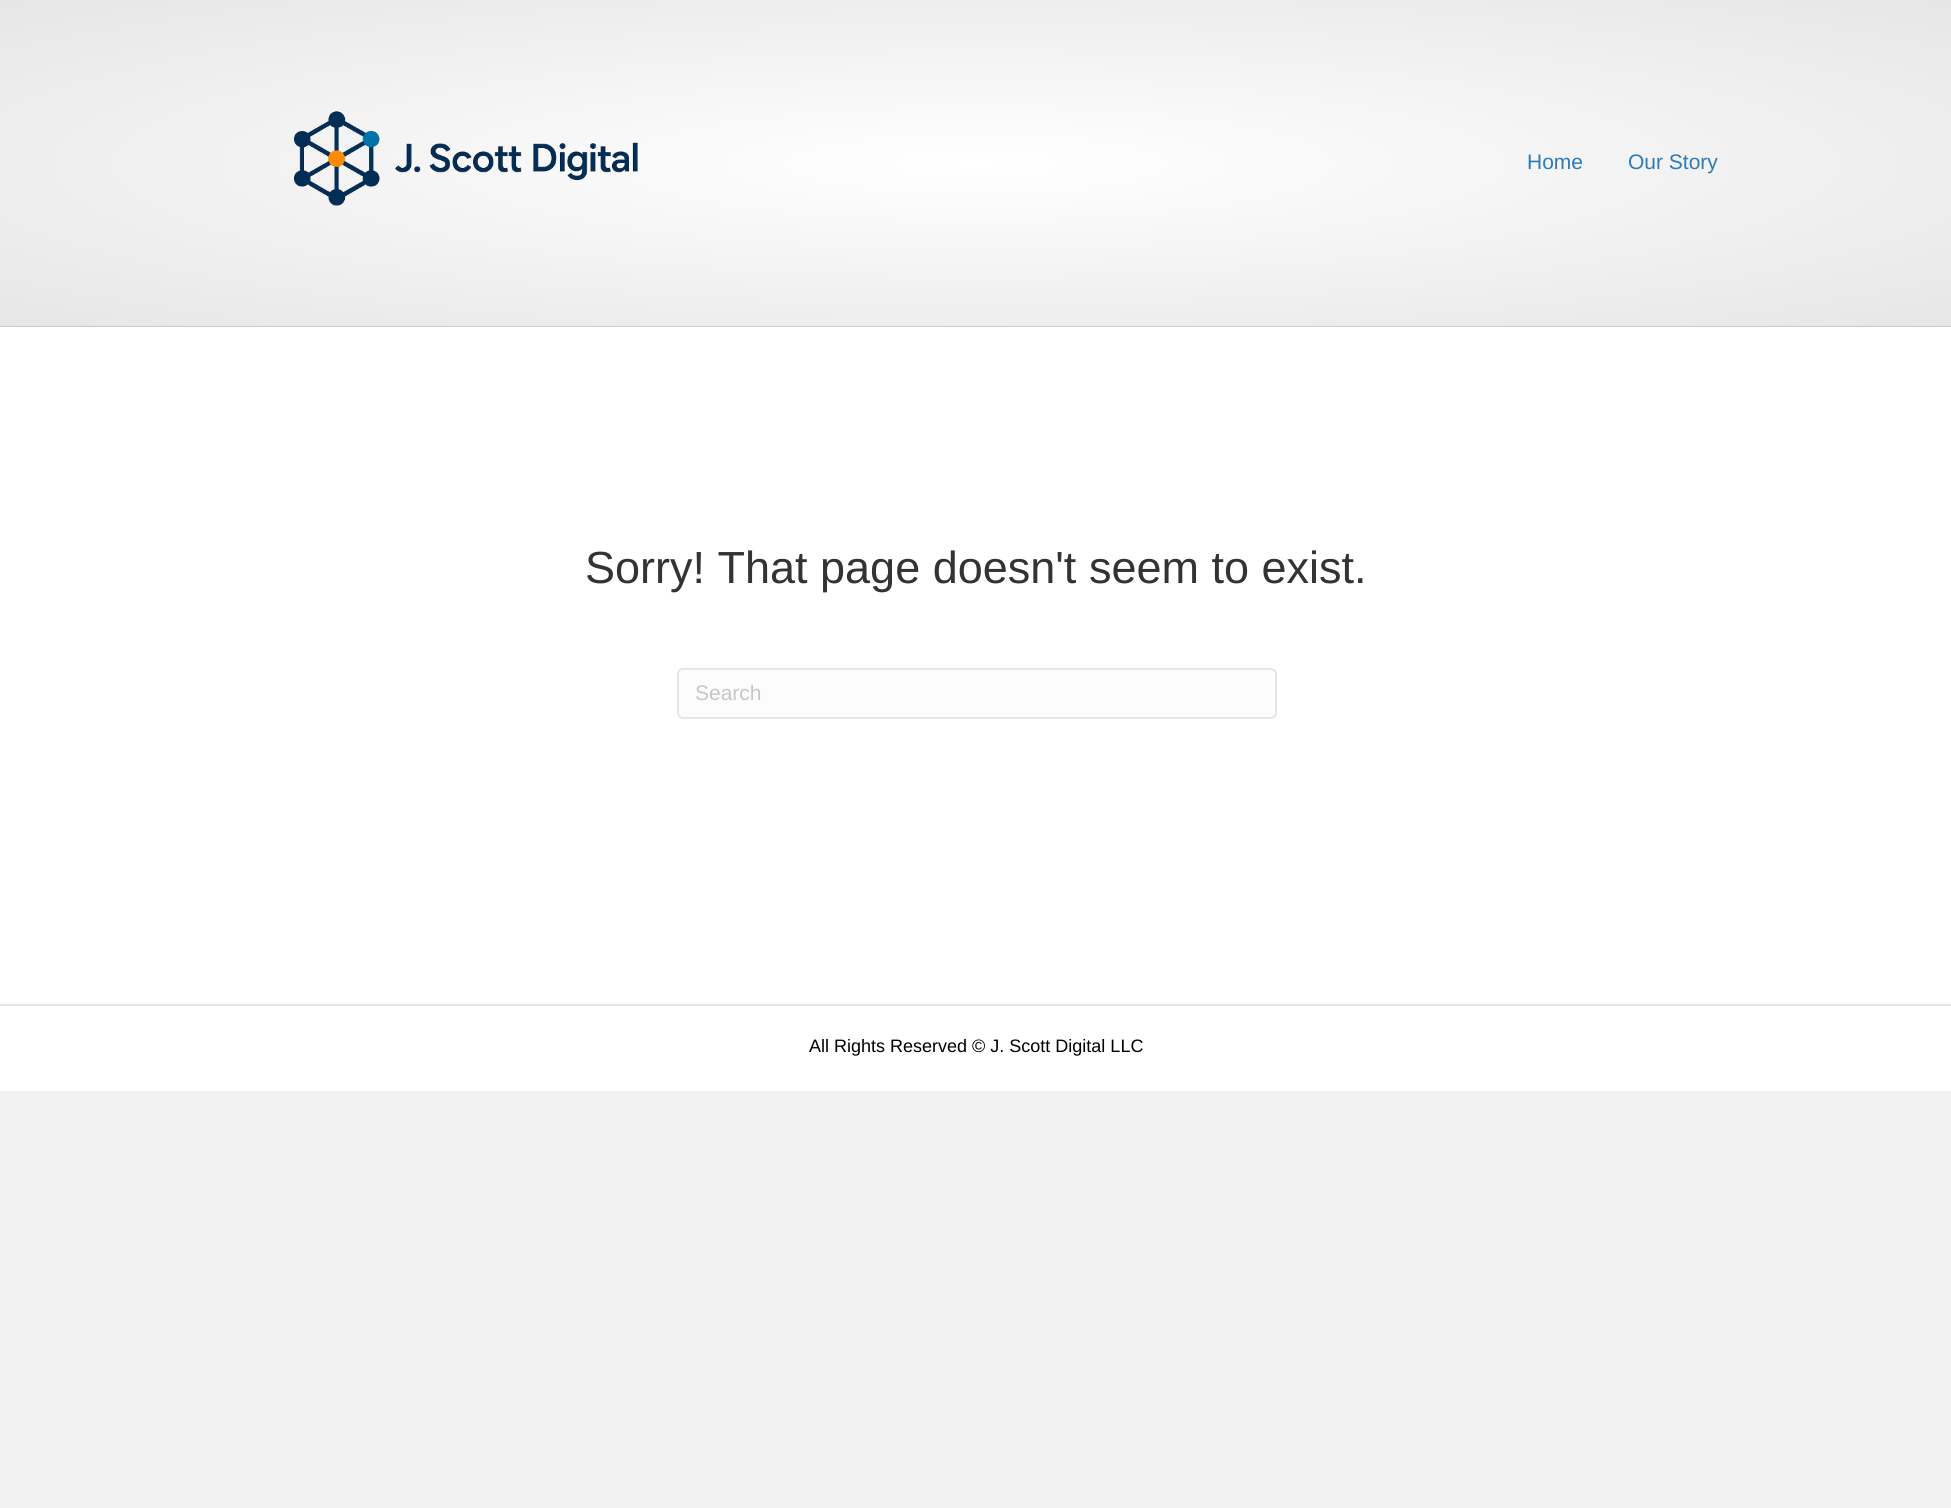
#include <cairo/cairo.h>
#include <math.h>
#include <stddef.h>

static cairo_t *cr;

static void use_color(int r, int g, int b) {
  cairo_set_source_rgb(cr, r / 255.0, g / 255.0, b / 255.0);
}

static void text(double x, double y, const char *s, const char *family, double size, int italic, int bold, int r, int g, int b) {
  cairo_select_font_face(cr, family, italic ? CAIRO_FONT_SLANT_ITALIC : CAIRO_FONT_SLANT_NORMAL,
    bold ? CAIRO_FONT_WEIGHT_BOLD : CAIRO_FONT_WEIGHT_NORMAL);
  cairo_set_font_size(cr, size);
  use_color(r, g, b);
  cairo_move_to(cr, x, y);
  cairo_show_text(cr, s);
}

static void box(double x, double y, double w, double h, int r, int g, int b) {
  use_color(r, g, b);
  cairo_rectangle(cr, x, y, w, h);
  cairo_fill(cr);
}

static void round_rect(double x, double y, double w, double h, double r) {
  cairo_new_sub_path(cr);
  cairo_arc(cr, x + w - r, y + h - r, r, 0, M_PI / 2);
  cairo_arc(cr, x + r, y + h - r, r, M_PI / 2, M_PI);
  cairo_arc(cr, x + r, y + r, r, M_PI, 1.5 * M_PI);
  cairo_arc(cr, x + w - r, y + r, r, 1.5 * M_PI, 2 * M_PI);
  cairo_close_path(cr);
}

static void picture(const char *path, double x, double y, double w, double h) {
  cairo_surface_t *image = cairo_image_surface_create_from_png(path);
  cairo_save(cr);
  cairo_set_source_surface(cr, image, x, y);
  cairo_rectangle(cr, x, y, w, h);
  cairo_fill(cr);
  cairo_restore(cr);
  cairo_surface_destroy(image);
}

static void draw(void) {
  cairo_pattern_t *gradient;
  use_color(242, 242, 242);
  cairo_paint(cr);
  gradient = cairo_pattern_create_radial(0, 0, 0, 0, 0, 1);
  cairo_pattern_set_matrix(gradient, &(cairo_matrix_t){1.0 / 1380, 0, 0, 1.0 / 231, -1.0 * 976 / 1380, -1.0 * 164 / 231});
  cairo_pattern_add_color_stop_rgba(gradient, 0, 1, 1, 1, 1);
  cairo_pattern_add_color_stop_rgba(gradient, 1, 0.902, 0.902, 0.902, 1);
  cairo_set_source(cr, gradient);
  cairo_pattern_destroy(gradient);
  cairo_rectangle(cr, 0, 0, 1951, 326);
  cairo_fill(cr);
  gradient = cairo_pattern_create_radial(0, 0, 0, 0, 0, 1);
  cairo_pattern_set_matrix(gradient, &(cairo_matrix_t){1.0 / 1380, 0, 0, 1.0 / 231, -1.0 * 976 / 1380, -1.0 * 164 / 231});
  cairo_pattern_add_color_stop_rgba(gradient, 0, 0.871, 0.871, 0.871, 1);
  cairo_pattern_add_color_stop_rgba(gradient, 1, 0.784, 0.784, 0.784, 1);
  cairo_set_source(cr, gradient);
  cairo_pattern_destroy(gradient);
  cairo_rectangle(cr, 0, 326, 1951, 1);
  cairo_fill(cr);
  picture("img_01.png", 293, 111, 345, 95);
  box(0, 327, 1951, 677, 255, 255, 255);
  use_color(252, 252, 252);
  round_rect(678, 669, 598, 49, 5);
  cairo_fill_preserve(cr);
  use_color(230, 230, 230);
  cairo_stroke(cr);
  box(0, 1006, 1951, 85, 255, 255, 255);
  box(0, 1004, 1951, 2, 230, 230, 230);
  text(1527, 169, "Home", "Liberation Sans", 21, 0, 0, 43, 123, 185);
  text(1628, 169, "Our Story", "Liberation Sans", 21, 0, 0, 43, 123, 185);
  text(585, 583, "Sorry! That page doesn't seem to exist.", "Liberation Sans", 45, 0, 0, 51, 51, 51);
  text(695, 700, "Search", "Liberation Sans", 21, 0, 0, 198, 198, 198);
  text(809, 1052, "All Rights Reserved © J. Scott Digital LLC", "Liberation Sans", 18, 0, 0, 0, 0, 0);
}

int main(void) {
  cairo_surface_t *surface = cairo_image_surface_create(CAIRO_FORMAT_RGB24, 1951, 1508);
  cr = cairo_create(surface);
  cairo_font_options_t *options = cairo_font_options_create();
  cairo_font_options_set_hint_metrics(options, CAIRO_HINT_METRICS_OFF);
  cairo_font_options_set_hint_style(options, CAIRO_HINT_STYLE_NONE);
  cairo_set_font_options(cr, options);
  cairo_set_miter_limit(cr, 4);
  draw();
  cairo_surface_write_to_png(surface, "out.png");
  cairo_font_options_destroy(options);
  cairo_destroy(cr);
  cairo_surface_destroy(surface);
  return 0;
}
